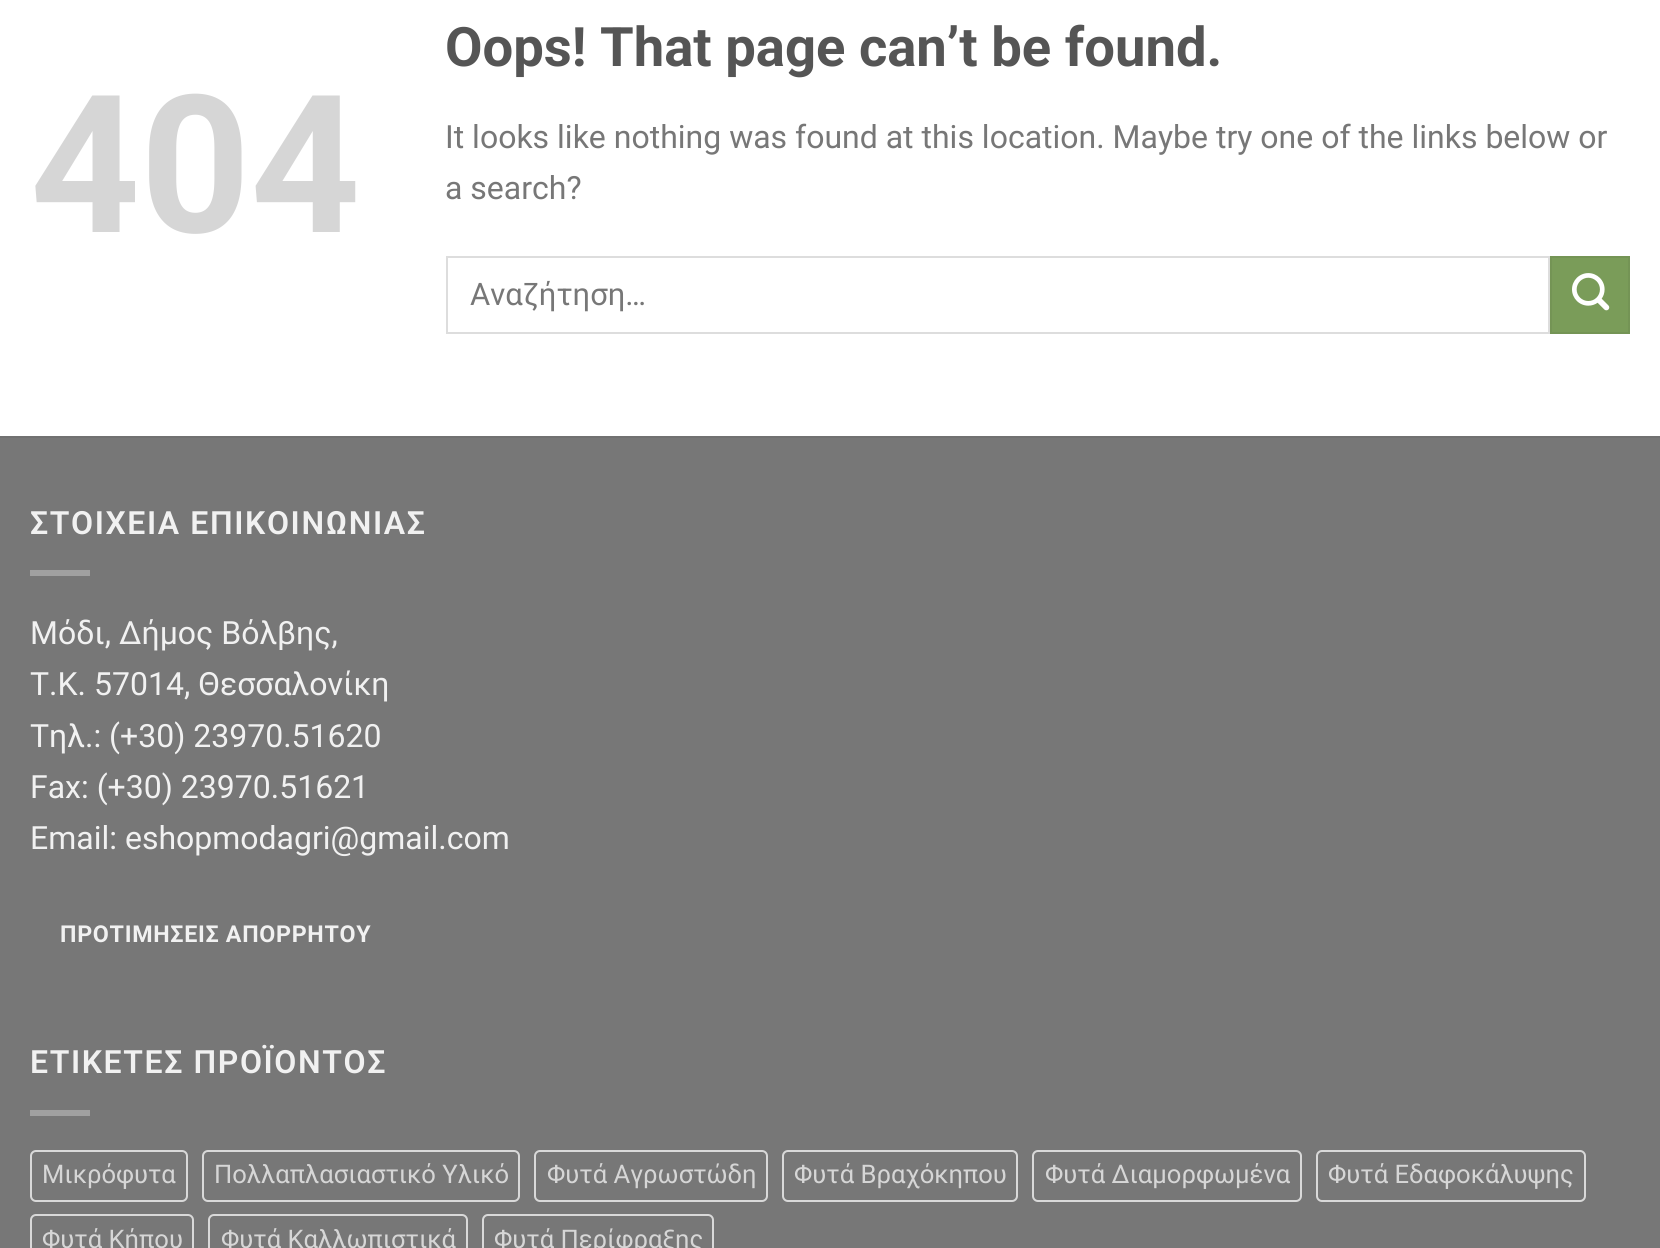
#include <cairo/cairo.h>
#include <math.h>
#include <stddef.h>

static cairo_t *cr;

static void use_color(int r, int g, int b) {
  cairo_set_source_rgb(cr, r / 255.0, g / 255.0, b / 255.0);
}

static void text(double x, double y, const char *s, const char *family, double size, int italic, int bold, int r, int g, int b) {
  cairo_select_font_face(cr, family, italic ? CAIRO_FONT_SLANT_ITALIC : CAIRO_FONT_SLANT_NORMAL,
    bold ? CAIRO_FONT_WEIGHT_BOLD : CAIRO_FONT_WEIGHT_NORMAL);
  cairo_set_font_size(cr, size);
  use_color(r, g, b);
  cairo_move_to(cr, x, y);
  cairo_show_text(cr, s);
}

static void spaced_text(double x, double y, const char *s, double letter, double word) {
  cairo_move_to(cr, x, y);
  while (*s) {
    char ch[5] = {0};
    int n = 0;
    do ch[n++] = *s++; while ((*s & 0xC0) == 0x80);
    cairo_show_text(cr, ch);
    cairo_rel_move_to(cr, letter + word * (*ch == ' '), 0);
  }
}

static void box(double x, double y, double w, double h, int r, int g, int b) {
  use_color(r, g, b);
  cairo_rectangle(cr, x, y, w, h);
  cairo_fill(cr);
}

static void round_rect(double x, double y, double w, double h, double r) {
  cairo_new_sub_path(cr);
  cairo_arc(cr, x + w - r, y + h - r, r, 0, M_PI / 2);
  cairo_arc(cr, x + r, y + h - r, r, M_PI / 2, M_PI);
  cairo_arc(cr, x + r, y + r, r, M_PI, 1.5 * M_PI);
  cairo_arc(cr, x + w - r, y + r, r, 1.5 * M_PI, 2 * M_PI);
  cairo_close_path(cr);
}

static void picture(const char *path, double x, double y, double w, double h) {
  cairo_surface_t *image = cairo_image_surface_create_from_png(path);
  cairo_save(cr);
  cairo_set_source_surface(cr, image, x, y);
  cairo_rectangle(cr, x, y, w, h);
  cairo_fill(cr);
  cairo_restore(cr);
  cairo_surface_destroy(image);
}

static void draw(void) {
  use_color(255, 255, 255);
  cairo_paint(cr);
  cairo_rectangle(cr, 447, 257, 1102, 76);
  use_color(221, 221, 221);
  cairo_stroke(cr);
  use_color(122, 156, 89);
  cairo_rectangle(cr, 1551, 257, 78, 76);
  cairo_fill_preserve(cr);
  use_color(116, 148, 85);
  cairo_stroke(cr);
  picture("img_01.png", 1572, 273, 38, 38);
  box(0, 438, 1660, 810, 119, 119, 119);
  box(0, 436, 1660, 2, 113, 113, 113);
  box(30, 570, 60, 6, 160, 160, 160);
  box(30, 1110, 60, 6, 160, 160, 160);
  round_rect(31, 1151, 156, 50, 5);
  use_color(217, 217, 217);
  cairo_stroke(cr);
  round_rect(203, 1151, 316, 50, 5);
  cairo_stroke(cr);
  round_rect(535, 1151, 232, 50, 5);
  cairo_stroke(cr);
  round_rect(783, 1151, 234, 50, 5);
  cairo_stroke(cr);
  round_rect(1033, 1151, 268, 50, 5);
  cairo_stroke(cr);
  round_rect(1317, 1151, 268, 50, 5);
  cairo_stroke(cr);
  round_rect(31, 1215, 162, 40, 5);
  cairo_stroke(cr);
  round_rect(209, 1215, 258, 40, 5);
  cairo_stroke(cr);
  round_rect(483, 1215, 230, 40, 5);
  cairo_stroke(cr);
  text(30, 232, "404", "Roboto", 192, 0, 1, 214, 214, 214);
  text(445, 66, "Oops! That page can’t be found.", "Roboto", 54.4, 0, 1, 85, 85, 85);
  text(445, 148, "It looks like nothing was found at this location. Maybe try one of the links below or", "Roboto", 32, 0, 0, 119, 119, 119);
  text(445, 199, "a search?", "Roboto", 32, 0, 0, 119, 119, 119);
  text(470, 305, "Αναζήτηση…", "Roboto", 31, 0, 0, 119, 119, 119);
  cairo_select_font_face(cr, "Roboto SemiBold", CAIRO_FONT_SLANT_NORMAL, CAIRO_FONT_WEIGHT_NORMAL);
  cairo_set_font_size(cr, 32);
  use_color(241, 241, 241);
  spaced_text(30, 534, "ΣΤΟΙΧΕΙΑ ΕΠΙΚΟΙΝΩΝΙΑΣ", 1.6, 0);
  text(30, 644, "Μόδι, Δήμος Βόλβης,", "Roboto", 32, 0, 0, 241, 241, 241);
  text(30, 695, "Τ.Κ. 57014, Θεσσαλονίκη", "Roboto", 32, 0, 0, 241, 241, 241);
  text(30, 747, "Τηλ.: (+30) 23970.51620", "Roboto", 32, 0, 0, 241, 241, 241);
  text(30, 798, "Fax: (+30) 23970.51621", "Roboto", 32, 0, 0, 241, 241, 241);
  text(30, 849, "Email: eshopmodagri@gmail.com", "Roboto", 32, 0, 0, 241, 241, 241);
  cairo_select_font_face(cr, "Roboto", CAIRO_FONT_SLANT_NORMAL, CAIRO_FONT_WEIGHT_BOLD);
  cairo_set_font_size(cr, 23.25);
  spaced_text(60, 942, "ΠΡΟΤΙΜΗΣΕΙΣ ΑΠΟΡΡΗΤΟΥ", 0.7, 0);
  cairo_select_font_face(cr, "Roboto SemiBold", CAIRO_FONT_SLANT_NORMAL, CAIRO_FONT_WEIGHT_NORMAL);
  cairo_set_font_size(cr, 32);
  spaced_text(30, 1073, "ΕΤΙΚΕΤΕΣ ΠΡΟΪΟΝΤΟΣ", 1.6, 0);
  text(42, 1183, "Μικρόφυτα", "Roboto", 25.6, 0, 0, 214, 214, 214);
  text(214, 1183, "Πολλαπλασιαστικό Υλικό", "Roboto", 25.6, 0, 0, 214, 214, 214);
  text(547, 1183, "Φυτά Αγρωστώδη", "Roboto", 25.6, 0, 0, 214, 214, 214);
  text(794, 1183, "Φυτά Βραχόκηπου", "Roboto", 25.6, 0, 0, 214, 214, 214);
  text(1045, 1183, "Φυτά Διαμορφωμένα", "Roboto", 25.6, 0, 0, 214, 214, 214);
  text(1328, 1183, "Φυτά Εδαφοκάλυψης", "Roboto", 25.6, 0, 0, 214, 214, 214);
  text(42, 1248, "Φυτά Κήπου", "Roboto", 25.6, 0, 0, 214, 214, 214);
  text(221, 1248, "Φυτά Καλλωπιστικά", "Roboto", 25.6, 0, 0, 214, 214, 214);
  text(494, 1248, "Φυτά Περίφραξης", "Roboto", 25.6, 0, 0, 214, 214, 214);
}

int main(void) {
  cairo_surface_t *surface = cairo_image_surface_create(CAIRO_FORMAT_RGB24, 1660, 1248);
  cr = cairo_create(surface);
  cairo_font_options_t *options = cairo_font_options_create();
  cairo_font_options_set_hint_metrics(options, CAIRO_HINT_METRICS_OFF);
  cairo_font_options_set_hint_style(options, CAIRO_HINT_STYLE_NONE);
  cairo_set_font_options(cr, options);
  cairo_set_miter_limit(cr, 4);
  draw();
  cairo_surface_write_to_png(surface, "out.png");
  cairo_font_options_destroy(options);
  cairo_destroy(cr);
  cairo_surface_destroy(surface);
  return 0;
}
